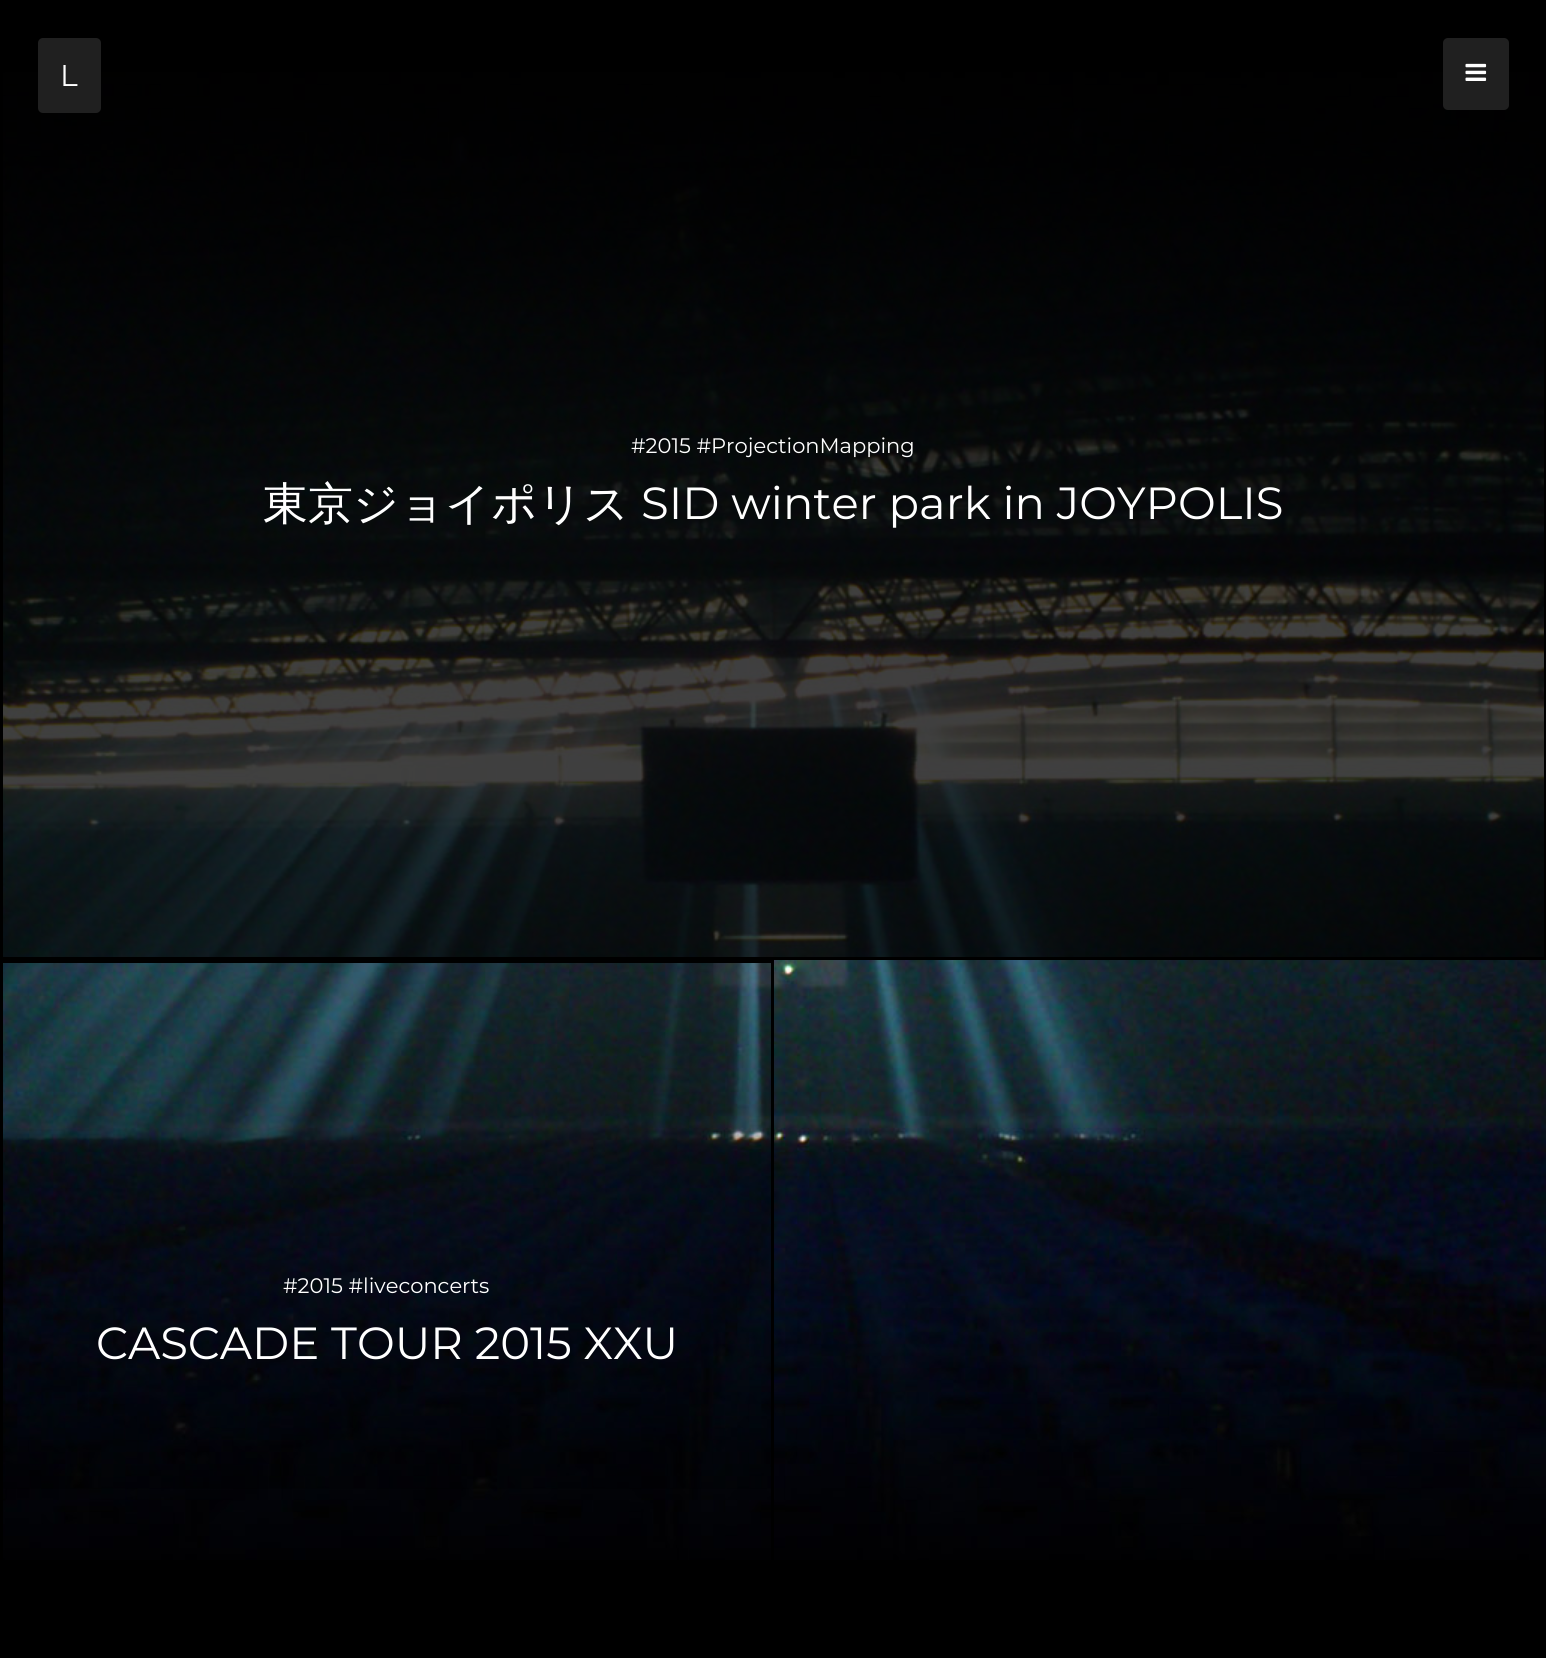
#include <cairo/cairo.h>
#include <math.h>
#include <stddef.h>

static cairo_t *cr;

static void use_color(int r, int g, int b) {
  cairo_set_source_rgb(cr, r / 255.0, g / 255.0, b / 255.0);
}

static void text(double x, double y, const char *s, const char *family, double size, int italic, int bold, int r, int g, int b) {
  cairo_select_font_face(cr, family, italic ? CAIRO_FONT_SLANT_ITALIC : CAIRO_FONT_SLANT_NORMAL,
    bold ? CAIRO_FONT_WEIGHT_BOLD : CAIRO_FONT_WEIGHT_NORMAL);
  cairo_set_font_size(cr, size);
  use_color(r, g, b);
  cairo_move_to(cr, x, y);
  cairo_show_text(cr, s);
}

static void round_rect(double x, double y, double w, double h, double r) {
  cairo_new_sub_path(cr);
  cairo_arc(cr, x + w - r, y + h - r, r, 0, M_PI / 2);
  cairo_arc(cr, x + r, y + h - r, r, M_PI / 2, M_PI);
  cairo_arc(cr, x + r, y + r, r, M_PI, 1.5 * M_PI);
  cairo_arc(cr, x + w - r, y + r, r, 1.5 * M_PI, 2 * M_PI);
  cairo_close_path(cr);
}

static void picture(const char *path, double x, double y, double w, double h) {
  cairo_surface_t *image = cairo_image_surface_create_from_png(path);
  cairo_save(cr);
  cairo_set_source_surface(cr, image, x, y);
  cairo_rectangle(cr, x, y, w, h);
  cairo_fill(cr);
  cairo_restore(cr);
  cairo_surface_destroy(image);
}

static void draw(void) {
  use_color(0, 0, 0);
  cairo_paint(cr);
  picture("img_01.png", 3, 72, 1543, 1488);
  cairo_set_source_rgba(cr, 0, 0, 0, 0.75);
  cairo_rectangle(cr, 3, 72, 1541, 885);
  cairo_fill(cr);
  cairo_rectangle(cr, 1.5, 1.5, 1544, 957);
  use_color(0, 0, 0);
  cairo_set_line_width(cr, 3);
  cairo_stroke(cr);
  use_color(32, 32, 32);
  round_rect(38, 38, 63, 75, 5);
  cairo_fill(cr);
  round_rect(1443, 38, 66, 72, 5);
  cairo_fill(cr);
  picture("img_02.png", 1465, 63, 22, 18);
  cairo_set_source_rgba(cr, 0, 0, 0, 0.25);
  cairo_rectangle(cr, 3, 963, 768, 526);
  cairo_fill(cr);
  cairo_rectangle(cr, 1.5, 961.5, 771, 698);
  use_color(0, 0, 0);
  cairo_stroke(cr);
  text(60, 86, "L", "Montserrat Thin", 30, 0, 0, 255, 255, 255);
  text(631, 453, "#2015 #ProjectionMapping", "Montserrat Thin", 21, 0, 0, 255, 255, 255);
  text(263, 519, "東京ジョイポリス", "WenQuanYi Zen Hei Medium", 45, 0, 0, 255, 255, 255);
  text(641, 519, "SID winter park in JOYPOLIS", "Montserrat Thin", 45, 0, 0, 255, 255, 255);
  text(283, 1293, "#2015 #liveconcerts", "Montserrat Thin", 21, 0, 0, 255, 255, 255);
  text(96, 1359, "CASCADE TOUR 2015 XXU", "Montserrat Thin", 45, 0, 0, 255, 255, 255);
}

int main(void) {
  cairo_surface_t *surface = cairo_image_surface_create(CAIRO_FORMAT_RGB24, 1546, 1658);
  cr = cairo_create(surface);
  cairo_font_options_t *options = cairo_font_options_create();
  cairo_font_options_set_hint_metrics(options, CAIRO_HINT_METRICS_OFF);
  cairo_font_options_set_hint_style(options, CAIRO_HINT_STYLE_NONE);
  cairo_set_font_options(cr, options);
  cairo_set_miter_limit(cr, 4);
  draw();
  cairo_surface_write_to_png(surface, "out.png");
  cairo_font_options_destroy(options);
  cairo_destroy(cr);
  cairo_surface_destroy(surface);
  return 0;
}
